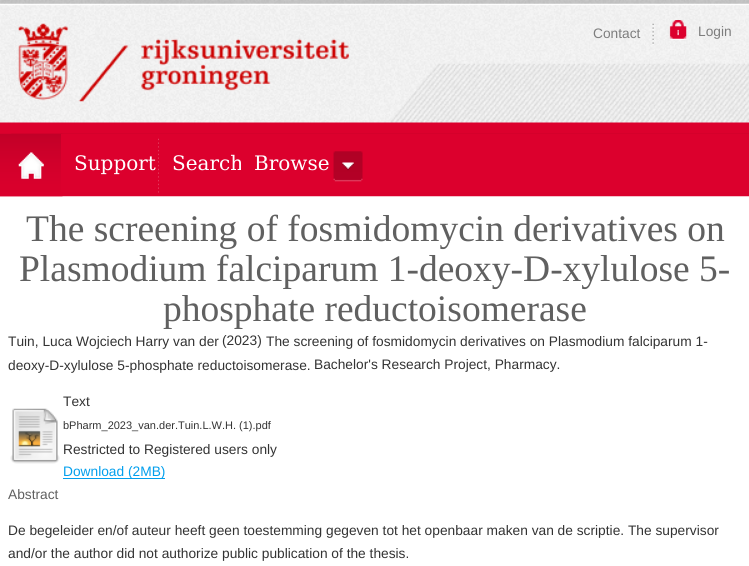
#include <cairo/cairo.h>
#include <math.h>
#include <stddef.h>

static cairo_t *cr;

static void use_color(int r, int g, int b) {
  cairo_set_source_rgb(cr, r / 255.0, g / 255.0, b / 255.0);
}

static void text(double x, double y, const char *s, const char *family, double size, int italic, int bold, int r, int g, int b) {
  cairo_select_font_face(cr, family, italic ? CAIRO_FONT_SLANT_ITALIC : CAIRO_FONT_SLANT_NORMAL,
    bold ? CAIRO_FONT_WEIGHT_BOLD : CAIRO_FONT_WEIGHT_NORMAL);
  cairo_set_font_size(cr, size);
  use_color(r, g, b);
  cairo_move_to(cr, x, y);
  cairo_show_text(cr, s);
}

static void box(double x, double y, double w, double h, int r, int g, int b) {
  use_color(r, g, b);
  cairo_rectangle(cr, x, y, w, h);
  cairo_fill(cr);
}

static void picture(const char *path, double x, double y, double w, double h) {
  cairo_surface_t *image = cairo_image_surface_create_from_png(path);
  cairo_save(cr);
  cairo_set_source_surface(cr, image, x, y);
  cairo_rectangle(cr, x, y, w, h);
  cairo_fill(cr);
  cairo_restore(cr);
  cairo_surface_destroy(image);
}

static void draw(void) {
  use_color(255, 255, 255);
  cairo_paint(cr);
  picture("img_01.png", 0, 0, 749, 197);
  picture("img_02.png", 18, 23, 331, 79);
  picture("img_03.png", 652, 23, 2, 22);
  picture("img_04.png", 669, 20, 18, 20);
  box(376, 134, 373, 58, 220, 0, 45);
  picture("img_05.png", 0, 133, 63, 64);
  box(61, 134, 180, 58, 220, 0, 45);
  picture("img_06.png", 158, 138, 1, 55);
  picture("img_08.png", 10, 408, 50, 56);
  box(63, 478, 102, 1, 2, 159, 237);
  text(593, 38, "Contact", "Liberation Sans", 13.75, 0, 0, 125, 125, 125);
  text(698, 36, "Login", "Liberation Sans", 13.75, 0, 0, 125, 125, 125);
  text(74, 170, "Support", "DejaVu Serif", 20, 0, 0, 255, 255, 255);
  text(172, 170, "Search", "DejaVu Serif", 20, 0, 0, 255, 255, 255);
  box(241, 134, 135, 58, 220, 0, 45);
  picture("img_07.png", 333, 151, 30, 31);
  text(254, 170, "Browse", "DejaVu Serif", 20, 0, 0, 255, 255, 255);
  text(26, 241, "The screening of fosmidomycin derivatives on", "Liberation Serif", 37.5, 0, 0, 96, 96, 96);
  text(19, 281, "Plasmodium falciparum 1-deoxy-D-xylulose 5-", "Liberation Serif", 37.5, 0, 0, 96, 96, 96);
  text(163, 321, "phosphate reductoisomerase", "Liberation Serif", 37.5, 0, 0, 96, 96, 96);
  text(8, 346, "Tuin, Luca Wojciech Harry van der", "Liberation Sans", 13.75, 0, 0, 51, 51, 51);
  text(222, 345, "(2023)", "Liberation Sans", 13.75, 0, 0, 51, 51, 51);
  text(266, 346, "The screening of fosmidomycin derivatives on Plasmodium falciparum 1-", "Liberation Sans", 13.75, 0, 0, 51, 51, 51);
  text(8, 370, "deoxy-D-xylulose 5-phosphate reductoisomerase.", "Liberation Sans", 13.75, 0, 0, 51, 51, 51);
  text(314, 369, "Bachelor's Research Project, Pharmacy.", "Liberation Sans", 13.75, 0, 0, 51, 51, 51);
  text(63, 406, "Text", "Liberation Sans", 13.75, 0, 0, 51, 51, 51);
  text(63, 429, "bPharm_2023_van.der.Tuin.L.W.H. (1).pdf", "Liberation Sans", 11, 0, 0, 51, 51, 51);
  text(63, 454, "Restricted to Registered users only", "Liberation Sans", 13.75, 0, 0, 51, 51, 51);
  text(63, 476, "Download (2MB)", "Liberation Sans", 13.75, 0, 0, 2, 159, 237);
  text(8, 499, "Abstract", "Liberation Sans", 13.75, 0, 0, 96, 96, 96);
  text(8, 535, "De begeleider en/of auteur heeft geen toestemming gegeven tot het openbaar maken van de scriptie. The supervisor", "Liberation Sans", 13.75, 0, 0, 51, 51, 51);
  text(8, 558, "and/or the author did not authorize public publication of the thesis.", "Liberation Sans", 13.75, 0, 0, 51, 51, 51);
}

int main(void) {
  cairo_surface_t *surface = cairo_image_surface_create(CAIRO_FORMAT_RGB24, 749, 566);
  cr = cairo_create(surface);
  cairo_font_options_t *options = cairo_font_options_create();
  cairo_font_options_set_hint_metrics(options, CAIRO_HINT_METRICS_OFF);
  cairo_font_options_set_hint_style(options, CAIRO_HINT_STYLE_NONE);
  cairo_set_font_options(cr, options);
  cairo_set_miter_limit(cr, 4);
  draw();
  cairo_surface_write_to_png(surface, "out.png");
  cairo_font_options_destroy(options);
  cairo_destroy(cr);
  cairo_surface_destroy(surface);
  return 0;
}
